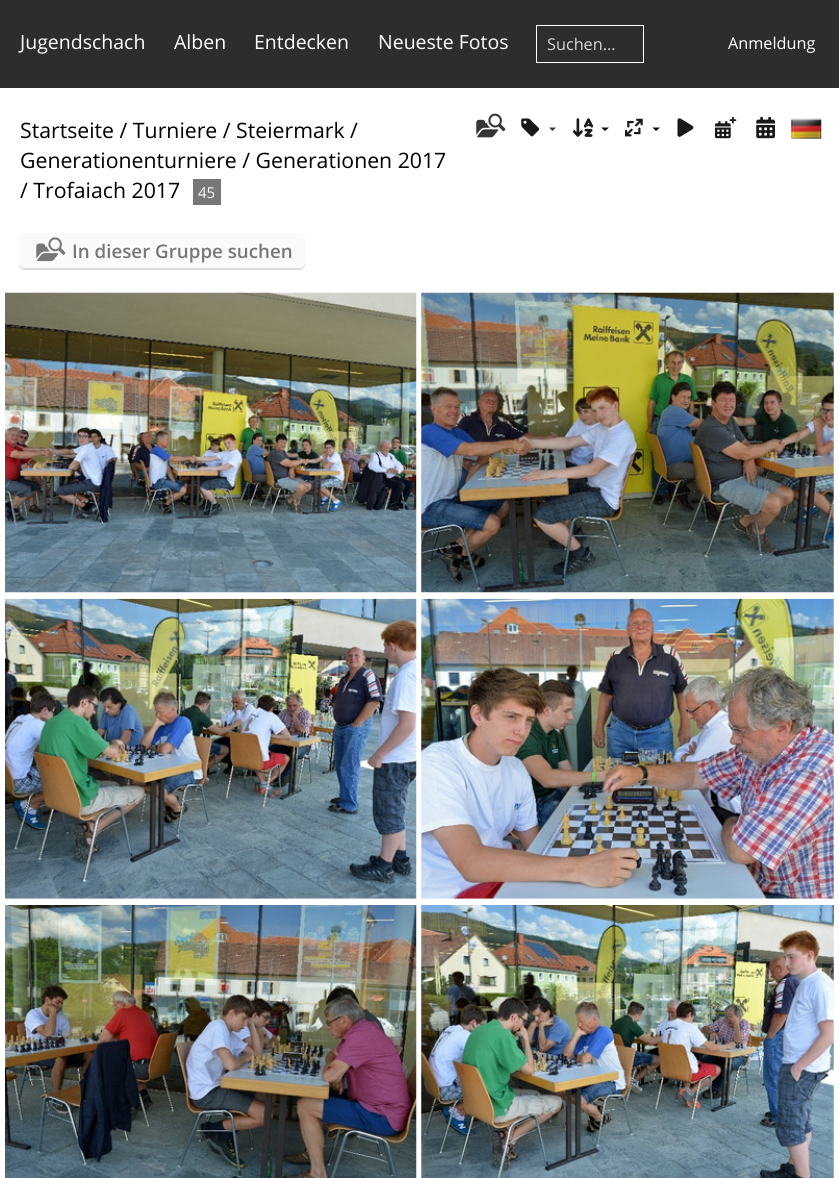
#include <cairo/cairo.h>
#include <math.h>
#include <stddef.h>

static cairo_t *cr;

static void use_color(int r, int g, int b) {
  cairo_set_source_rgb(cr, r / 255.0, g / 255.0, b / 255.0);
}

static void text(double x, double y, const char *s, const char *family, double size, int italic, int bold, int r, int g, int b) {
  cairo_select_font_face(cr, family, italic ? CAIRO_FONT_SLANT_ITALIC : CAIRO_FONT_SLANT_NORMAL,
    bold ? CAIRO_FONT_WEIGHT_BOLD : CAIRO_FONT_WEIGHT_NORMAL);
  cairo_set_font_size(cr, size);
  use_color(r, g, b);
  cairo_move_to(cr, x, y);
  cairo_show_text(cr, s);
}

static void box(double x, double y, double w, double h, int r, int g, int b) {
  use_color(r, g, b);
  cairo_rectangle(cr, x, y, w, h);
  cairo_fill(cr);
}

static void round_rect(double x, double y, double w, double h, double r) {
  cairo_new_sub_path(cr);
  cairo_arc(cr, x + w - r, y + h - r, r, 0, M_PI / 2);
  cairo_arc(cr, x + r, y + h - r, r, M_PI / 2, M_PI);
  cairo_arc(cr, x + r, y + r, r, M_PI, 1.5 * M_PI);
  cairo_arc(cr, x + w - r, y + r, r, 1.5 * M_PI, 2 * M_PI);
  cairo_close_path(cr);
}

static void picture(const char *path, double x, double y, double w, double h) {
  cairo_surface_t *image = cairo_image_surface_create_from_png(path);
  cairo_save(cr);
  cairo_set_source_surface(cr, image, x, y);
  cairo_rectangle(cr, x, y, w, h);
  cairo_fill(cr);
  cairo_restore(cr);
  cairo_surface_destroy(image);
}

static void draw(void) {
  use_color(255, 255, 255);
  cairo_paint(cr);
  box(0, 0, 839, 88, 45, 45, 45);
  cairo_rectangle(cr, 536.5, 25.5, 107, 37);
  use_color(255, 255, 255);
  cairo_set_line_width(cr, 1);
  cairo_stroke(cr);
  box(193, 179, 28, 26, 119, 119, 119);
  picture("img_01.png", 476, 113, 30, 25);
  picture("img_02.png", 521, 118, 19, 19);
  use_color(54, 54, 54);
  cairo_new_path(cr);
  cairo_move_to(cr, 549, 127.5);
  cairo_line_to(cr, 556, 127.5);
  cairo_line_to(cr, 552.5, 131);
  cairo_close_path(cr);
  cairo_fill(cr);
  picture("img_03.png", 572, 118, 22, 19);
  use_color(0, 0, 0);
  cairo_new_path(cr);
  cairo_move_to(cr, 601, 127.5);
  cairo_line_to(cr, 609, 127.5);
  cairo_line_to(cr, 605, 131);
  cairo_close_path(cr);
  cairo_move_to(cr, 652.5, 127.5);
  cairo_line_to(cr, 660, 127.5);
  cairo_line_to(cr, 656, 131);
  cairo_close_path(cr);
  cairo_fill(cr);
  picture("img_04.png", 715, 116, 22, 23);
  picture("img_05.png", 756, 116, 19, 23);
  picture("img_06.png", 625, 118, 18, 19);
  picture("img_07.png", 677, 118, 17, 19);
  picture("img_08.png", 791, 118, 31, 21);
  use_color(219, 219, 219);
  cairo_new_path(cr);
  cairo_move_to(cr, 19, 263);
  cairo_line_to(cr, 19, 264);
  cairo_curve_to(cr, 19, 267, 22, 270, 25, 270);
  cairo_line_to(cr, 299, 270);
  cairo_curve_to(cr, 302, 270, 305, 267, 305, 264);
  cairo_line_to(cr, 305, 261);
  cairo_curve_to(cr, 305, 265, 302, 268, 299, 268);
  cairo_line_to(cr, 25, 268);
  cairo_curve_to(cr, 22, 268, 20, 266, 19, 263);
  cairo_close_path(cr);
  cairo_fill(cr);
  use_color(250, 250, 250);
  round_rect(19, 233, 286, 35, 6);
  cairo_fill(cr);
  picture("img_09.png", 36, 237, 30, 25);
  picture("img_10.png", 5, 292, 412, 301);
  picture("img_11.png", 421, 292, 413, 301);
  picture("img_12.png", 5, 598, 412, 301);
  picture("img_13.png", 421, 598, 413, 301);
  picture("img_14.png", 5, 905, 412, 273);
  picture("img_15.png", 421, 905, 413, 273);
  text(20, 49, "Jugendschach", "Open Sans", 19.5, 0, 0, 255, 255, 255);
  text(174, 49, "Alben", "Open Sans", 19.5, 0, 0, 255, 255, 255);
  text(254, 49, "Entdecken", "Open Sans", 19.5, 0, 0, 255, 255, 255);
  text(378, 49, "Neueste Fotos", "Open Sans", 19.5, 0, 0, 255, 255, 255);
  text(547, 50, "Suchen...", "Open Sans", 16.25, 0, 0, 214, 214, 214);
  text(728, 49, "Anmeldung", "Open Sans", 16.25, 0, 0, 255, 255, 255);
  text(20, 138, "Startseite / Turniere / Steiermark /", "Open Sans", 21.25, 0, 0, 0, 0, 0);
  text(20, 168, "Generationenturniere / Generationen 2017", "Open Sans", 21.25, 0, 0, 0, 0, 0);
  text(20, 198, "/ Trofaiach 2017", "Open Sans", 21.25, 0, 0, 0, 0, 0);
  text(198, 198, "45", "Open Sans", 15, 0, 0, 255, 255, 255);
  text(72, 258, "In dieser Gruppe suchen", "Open Sans SemiBold", 18.75, 0, 0, 119, 119, 119);
}

int main(void) {
  cairo_surface_t *surface = cairo_image_surface_create(CAIRO_FORMAT_RGB24, 839, 1178);
  cr = cairo_create(surface);
  cairo_font_options_t *options = cairo_font_options_create();
  cairo_font_options_set_hint_metrics(options, CAIRO_HINT_METRICS_OFF);
  cairo_font_options_set_hint_style(options, CAIRO_HINT_STYLE_NONE);
  cairo_set_font_options(cr, options);
  cairo_set_miter_limit(cr, 4);
  draw();
  cairo_surface_write_to_png(surface, "out.png");
  cairo_font_options_destroy(options);
  cairo_destroy(cr);
  cairo_surface_destroy(surface);
  return 0;
}
